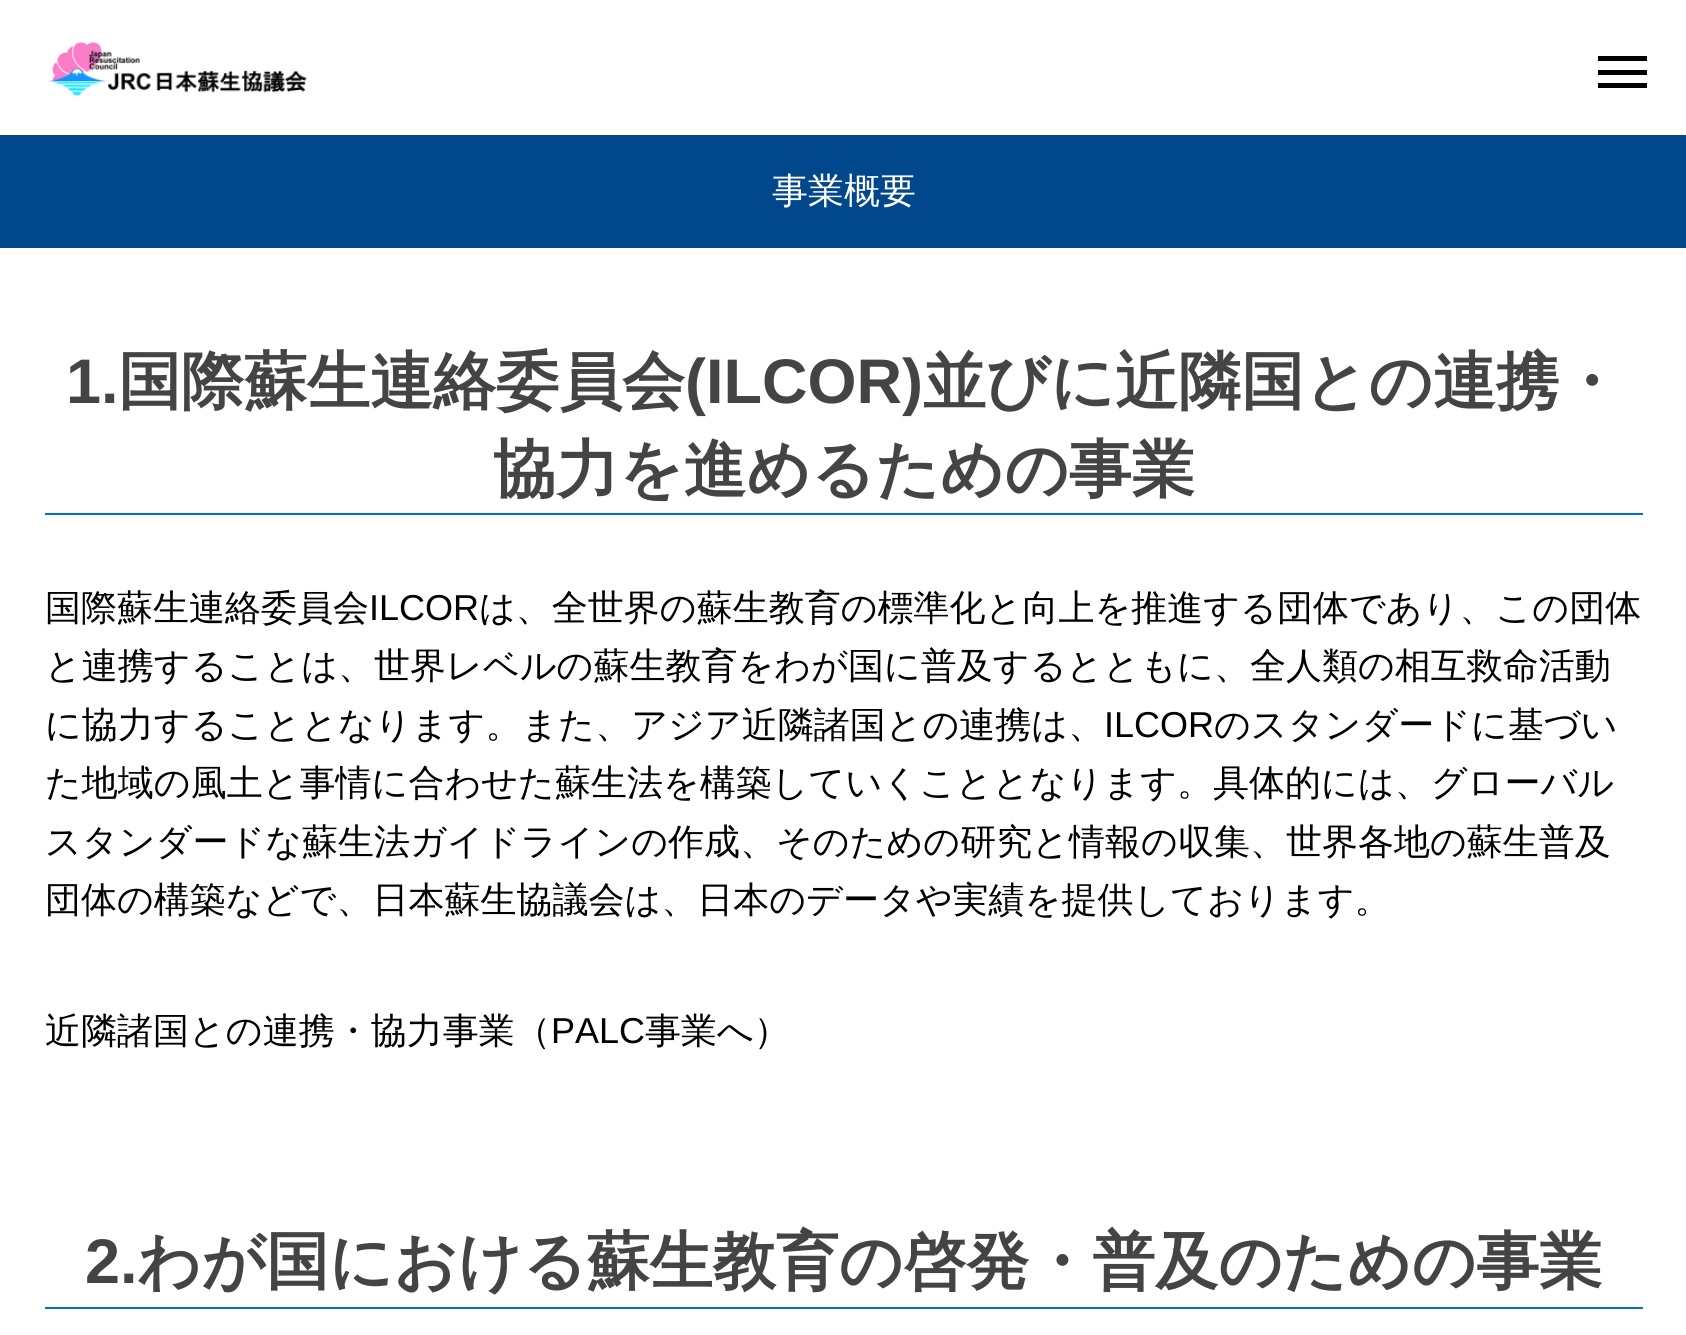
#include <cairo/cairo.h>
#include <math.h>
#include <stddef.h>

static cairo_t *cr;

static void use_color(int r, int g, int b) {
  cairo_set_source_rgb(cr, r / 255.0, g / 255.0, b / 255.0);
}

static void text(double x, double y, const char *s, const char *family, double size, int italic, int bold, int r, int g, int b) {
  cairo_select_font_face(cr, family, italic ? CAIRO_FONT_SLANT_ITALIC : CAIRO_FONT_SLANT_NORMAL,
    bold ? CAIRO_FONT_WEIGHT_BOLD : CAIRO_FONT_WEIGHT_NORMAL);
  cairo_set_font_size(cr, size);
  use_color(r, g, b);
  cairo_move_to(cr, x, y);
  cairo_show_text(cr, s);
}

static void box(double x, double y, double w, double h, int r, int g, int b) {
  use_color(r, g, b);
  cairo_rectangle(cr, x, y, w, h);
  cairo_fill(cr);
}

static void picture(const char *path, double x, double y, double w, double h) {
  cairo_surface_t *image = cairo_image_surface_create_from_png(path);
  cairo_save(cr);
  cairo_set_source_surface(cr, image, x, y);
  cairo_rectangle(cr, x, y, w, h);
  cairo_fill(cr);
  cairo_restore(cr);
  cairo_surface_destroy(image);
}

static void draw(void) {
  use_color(255, 255, 255);
  cairo_paint(cr);
  picture("img_01.png", 47, 41, 261, 55);
  box(1598, 56, 49, 5, 0, 0, 0);
  box(1598, 70, 49, 5, 0, 0, 0);
  box(1598, 83, 49, 5, 0, 0, 0);
  box(0, 135, 1686, 113, 1, 71, 140);
  box(45, 513, 1598, 2, 3, 114, 203);
  box(45, 1307, 1598, 2, 3, 114, 203);
  text(772, 203, "事業概要", "WenQuanYi Zen Hei Medium", 36, 0, 0, 255, 255, 255);
  text(66, 403, "1.", "Liberation Sans", 63, 0, 1, 68, 68, 68);
  text(118, 403, "国際蘇生連絡委員会", "WenQuanYi Zen Hei", 63, 0, 1, 68, 68, 68);
  text(685, 403, "(ILCOR)", "Liberation Sans", 63, 0, 1, 68, 68, 68);
  text(923, 403, "並びに近隣国との連携・", "WenQuanYi Zen Hei", 63, 0, 1, 68, 68, 68);
  text(493, 491, "協力を進めるための事業", "WenQuanYi Zen Hei", 63, 0, 1, 68, 68, 68);
  text(45, 620, "国際蘇生連絡委員会", "WenQuanYi Zen Hei Medium", 36, 0, 0, 0, 0, 0);
  text(369, 620, "ILCOR", "Liberation Sans", 36, 0, 0, 0, 0, 0);
  text(479, 620, "は、全世界の蘇生教育の標準化と向上を推進する団体であり、この団体", "WenQuanYi Zen Hei Medium", 36, 0, 0, 0, 0, 0);
  text(45, 678, "と連携することは、世界レベルの蘇生教育をわが国に普及するとともに、全人類の相互救命活動", "WenQuanYi Zen Hei Medium", 36, 0, 0, 0, 0, 0);
  text(45, 737, "に協力することとなります。また、アジア近隣諸国との連携は、", "WenQuanYi Zen Hei Medium", 36, 0, 0, 0, 0, 0);
  text(1104, 737, "ILCOR", "Liberation Sans", 36, 0, 0, 0, 0, 0);
  text(1214, 737, "のスタンダードに基づい", "WenQuanYi Zen Hei Medium", 36, 0, 0, 0, 0, 0);
  text(45, 795, "た地域の風土と事情に合わせた蘇生法を構築していくこととなります。具体的には、グローバル", "WenQuanYi Zen Hei Medium", 36, 0, 0, 0, 0, 0);
  text(45, 854, "スタンダードな蘇生法ガイドラインの作成、そのための研究と情報の収集、世界各地の蘇生普及", "WenQuanYi Zen Hei Medium", 36, 0, 0, 0, 0, 0);
  text(45, 912, "団体の構築などで、日本蘇生協議会は、日本のデータや実績を提供しております。", "WenQuanYi Zen Hei Medium", 36, 0, 0, 0, 0, 0);
  text(45, 1043, "近隣諸国との連携・協力事業（", "WenQuanYi Zen Hei Medium", 36, 0, 0, 0, 0, 0);
  text(551, 1043, "PALC", "Liberation Sans", 36, 0, 0, 0, 0, 0);
  text(645, 1043, "事業へ）", "WenQuanYi Zen Hei Medium", 36, 0, 0, 0, 0, 0);
  text(85, 1283, "2.", "Liberation Sans", 63, 0, 1, 68, 68, 68);
  text(137, 1283, "わが国における蘇生教育の啓発・普及のための事業", "WenQuanYi Zen Hei", 63, 0, 1, 68, 68, 68);
}

int main(void) {
  cairo_surface_t *surface = cairo_image_surface_create(CAIRO_FORMAT_RGB24, 1686, 1335);
  cr = cairo_create(surface);
  cairo_font_options_t *options = cairo_font_options_create();
  cairo_font_options_set_hint_metrics(options, CAIRO_HINT_METRICS_OFF);
  cairo_font_options_set_hint_style(options, CAIRO_HINT_STYLE_NONE);
  cairo_set_font_options(cr, options);
  cairo_set_miter_limit(cr, 4);
  draw();
  cairo_surface_write_to_png(surface, "out.png");
  cairo_font_options_destroy(options);
  cairo_destroy(cr);
  cairo_surface_destroy(surface);
  return 0;
}
